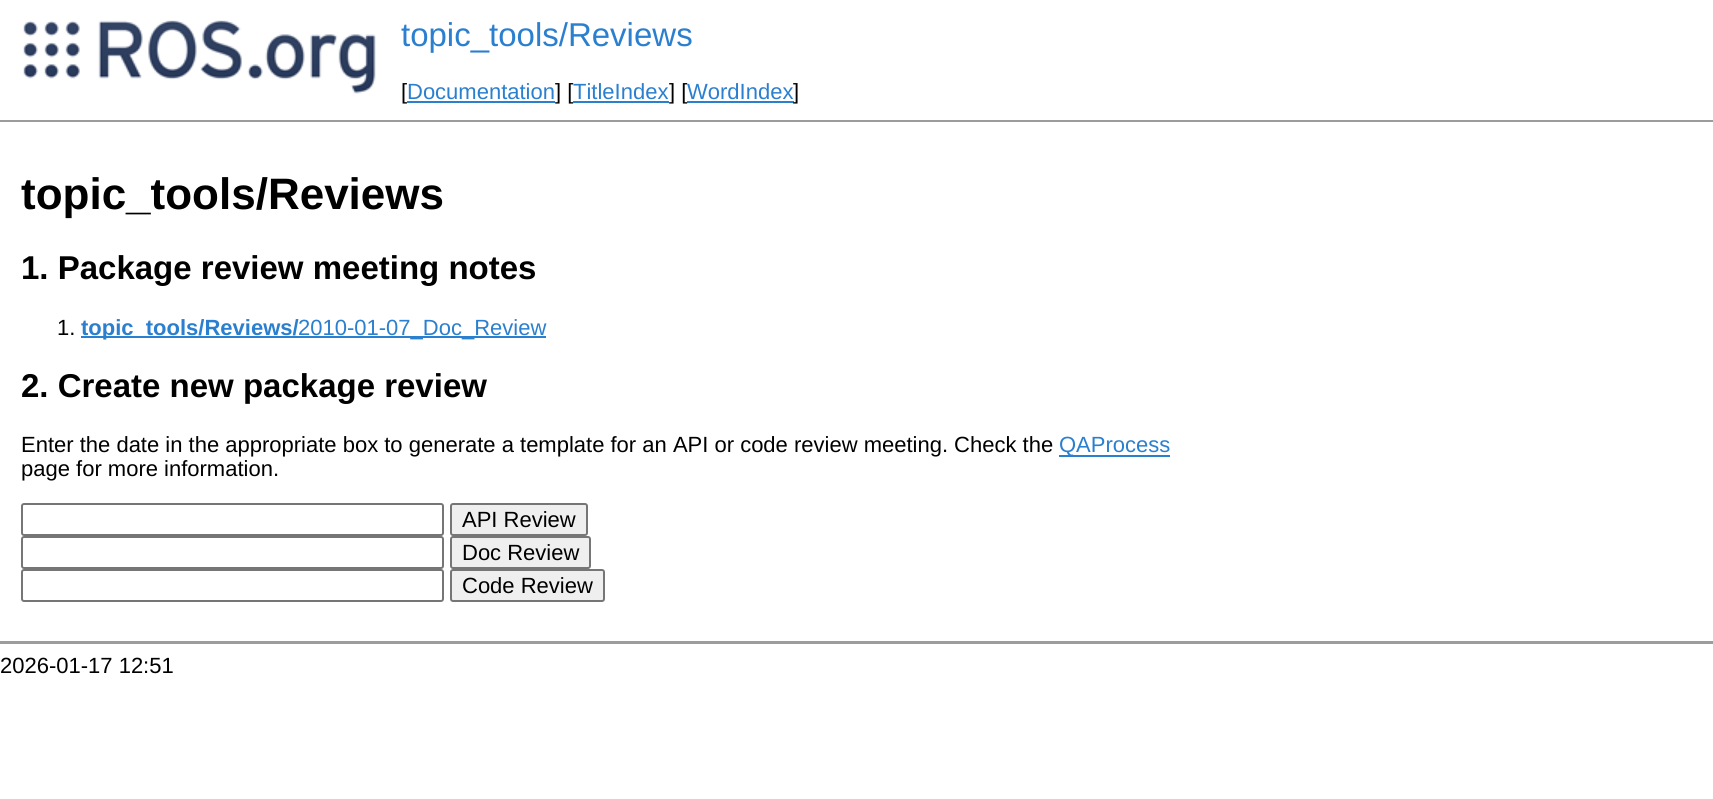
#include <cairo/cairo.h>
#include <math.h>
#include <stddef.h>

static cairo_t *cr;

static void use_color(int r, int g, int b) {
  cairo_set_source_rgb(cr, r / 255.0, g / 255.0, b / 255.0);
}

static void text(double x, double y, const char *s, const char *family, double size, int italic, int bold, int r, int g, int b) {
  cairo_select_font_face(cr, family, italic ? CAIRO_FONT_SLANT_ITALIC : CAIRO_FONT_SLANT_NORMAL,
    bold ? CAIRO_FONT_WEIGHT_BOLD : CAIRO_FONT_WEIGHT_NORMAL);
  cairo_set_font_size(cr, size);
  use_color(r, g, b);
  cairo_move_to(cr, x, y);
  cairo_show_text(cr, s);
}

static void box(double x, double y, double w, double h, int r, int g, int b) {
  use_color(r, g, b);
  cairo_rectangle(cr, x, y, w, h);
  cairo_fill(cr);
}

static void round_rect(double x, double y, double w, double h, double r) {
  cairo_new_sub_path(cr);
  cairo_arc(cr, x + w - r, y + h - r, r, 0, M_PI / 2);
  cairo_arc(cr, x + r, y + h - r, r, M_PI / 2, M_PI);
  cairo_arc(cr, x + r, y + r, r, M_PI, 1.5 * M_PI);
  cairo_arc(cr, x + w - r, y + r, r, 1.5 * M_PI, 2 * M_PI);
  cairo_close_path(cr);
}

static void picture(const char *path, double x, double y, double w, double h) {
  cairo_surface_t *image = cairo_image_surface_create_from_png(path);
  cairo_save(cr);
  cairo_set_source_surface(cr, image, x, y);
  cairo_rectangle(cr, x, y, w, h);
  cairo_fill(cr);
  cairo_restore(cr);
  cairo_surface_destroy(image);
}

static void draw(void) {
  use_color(255, 255, 255);
  cairo_paint(cr);
  picture("img_01.png", 23, 20, 353, 74);
  box(407, 101, 148, 2, 43, 127, 207);
  box(687, 101, 107, 2, 43, 127, 207);
  box(0, 120, 1713, 2, 156, 156, 156);
  box(81, 336, 465, 2, 43, 127, 207);
  box(1059, 455, 111, 2, 43, 127, 207);
  round_rect(22, 504, 421, 31, 2);
  use_color(118, 118, 118);
  cairo_stroke(cr);
  use_color(239, 239, 239);
  round_rect(451, 504, 136, 31, 2);
  cairo_fill_preserve(cr);
  use_color(118, 118, 118);
  cairo_stroke(cr);
  round_rect(22, 537, 421, 31, 2);
  cairo_stroke(cr);
  use_color(239, 239, 239);
  round_rect(451, 537, 139, 31, 2);
  cairo_fill_preserve(cr);
  use_color(118, 118, 118);
  cairo_stroke(cr);
  round_rect(22, 570, 421, 31, 2);
  cairo_stroke(cr);
  use_color(239, 239, 239);
  round_rect(451, 570, 153, 31, 2);
  cairo_fill_preserve(cr);
  use_color(118, 118, 118);
  cairo_stroke(cr);
  box(0, 641, 1713, 3, 156, 156, 156);
  text(401, 46, "topic_tools/Reviews", "Liberation Sans", 33, 0, 0, 43, 127, 207);
  text(401, 99, "[", "Liberation Sans", 22, 0, 0, 0, 0, 0);
  text(407, 99, "Documentation", "Liberation Sans", 22, 0, 0, 43, 127, 207);
  text(555, 99, "] [", "Liberation Sans", 22, 0, 0, 0, 0, 0);
  text(573, 99, "TitleIndex", "Liberation Sans", 22, 0, 0, 43, 127, 207);
  box(573, 101, 96, 2, 43, 127, 207);
  text(669, 99, "] [", "Liberation Sans", 22, 0, 0, 0, 0, 0);
  text(687, 99, "WordIndex", "Liberation Sans", 22, 0, 0, 43, 127, 207);
  text(793, 99, "]", "Liberation Sans", 22, 0, 0, 0, 0, 0);
  text(21, 209, "topic_tools/Reviews", "Liberation Sans", 44, 0, 1, 0, 0, 0);
  text(21, 279, "1. Package review meeting notes", "Liberation Sans", 33, 0, 1, 0, 0, 0);
  text(57, 335, "1.", "Liberation Sans", 22, 0, 0, 0, 0, 0);
  text(81, 335, "topic_tools/Reviews/", "Liberation Sans", 22, 0, 1, 43, 127, 207);
  text(298, 335, "2010-01-07_Doc_Review", "Liberation Sans", 22, 0, 0, 43, 127, 207);
  text(21, 397, "2. Create new package review", "Liberation Sans", 33, 0, 1, 0, 0, 0);
  text(21, 452, "Enter the date in the appropriate box to generate a template for an API or code review meeting. Check the", "Liberation Sans", 22, 0, 0, 0, 0, 0);
  text(1059, 452, "QAProcess", "Liberation Sans", 22, 0, 0, 43, 127, 207);
  text(21, 476, "page for more information.", "Liberation Sans", 22, 0, 0, 0, 0, 0);
  text(462, 527, "API Review", "Liberation Sans", 22, 0, 0, 0, 0, 0);
  text(462, 560, "Doc Review", "Liberation Sans", 22, 0, 0, 0, 0, 0);
  text(462, 593, "Code Review", "Liberation Sans", 22, 0, 0, 0, 0, 0);
  text(0, 673, "2026-01-17 12:51", "Liberation Sans", 22, 0, 0, 0, 0, 0);
}

int main(void) {
  cairo_surface_t *surface = cairo_image_surface_create(CAIRO_FORMAT_RGB24, 1713, 799);
  cr = cairo_create(surface);
  cairo_font_options_t *options = cairo_font_options_create();
  cairo_font_options_set_hint_metrics(options, CAIRO_HINT_METRICS_OFF);
  cairo_font_options_set_hint_style(options, CAIRO_HINT_STYLE_NONE);
  cairo_set_font_options(cr, options);
  cairo_set_miter_limit(cr, 4);
  draw();
  cairo_surface_write_to_png(surface, "out.png");
  cairo_font_options_destroy(options);
  cairo_destroy(cr);
  cairo_surface_destroy(surface);
  return 0;
}
